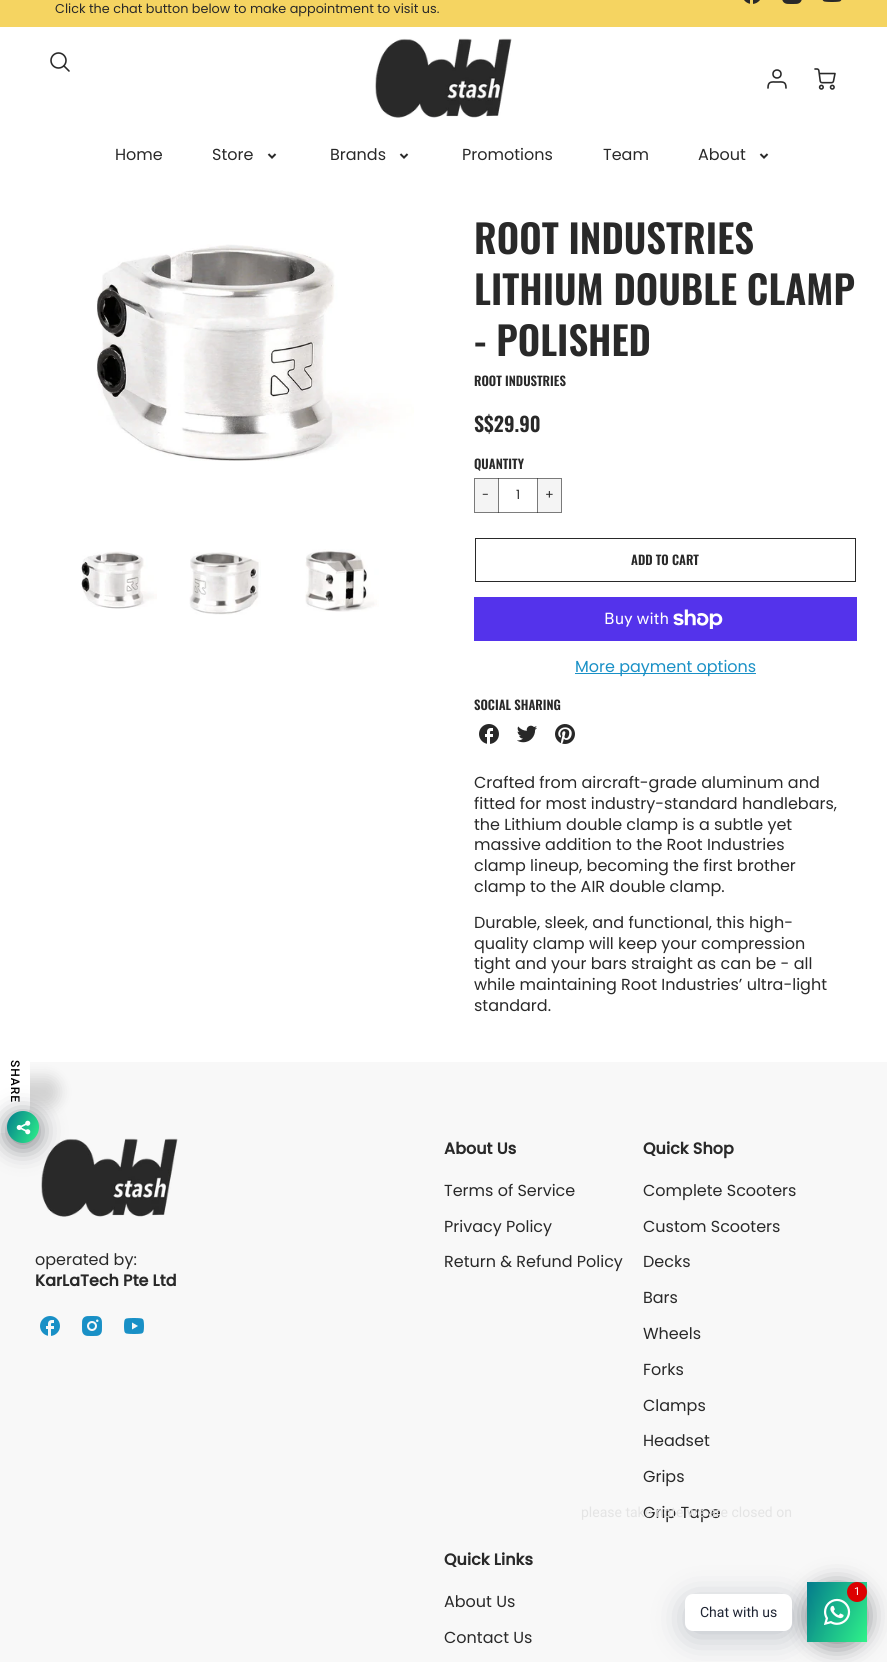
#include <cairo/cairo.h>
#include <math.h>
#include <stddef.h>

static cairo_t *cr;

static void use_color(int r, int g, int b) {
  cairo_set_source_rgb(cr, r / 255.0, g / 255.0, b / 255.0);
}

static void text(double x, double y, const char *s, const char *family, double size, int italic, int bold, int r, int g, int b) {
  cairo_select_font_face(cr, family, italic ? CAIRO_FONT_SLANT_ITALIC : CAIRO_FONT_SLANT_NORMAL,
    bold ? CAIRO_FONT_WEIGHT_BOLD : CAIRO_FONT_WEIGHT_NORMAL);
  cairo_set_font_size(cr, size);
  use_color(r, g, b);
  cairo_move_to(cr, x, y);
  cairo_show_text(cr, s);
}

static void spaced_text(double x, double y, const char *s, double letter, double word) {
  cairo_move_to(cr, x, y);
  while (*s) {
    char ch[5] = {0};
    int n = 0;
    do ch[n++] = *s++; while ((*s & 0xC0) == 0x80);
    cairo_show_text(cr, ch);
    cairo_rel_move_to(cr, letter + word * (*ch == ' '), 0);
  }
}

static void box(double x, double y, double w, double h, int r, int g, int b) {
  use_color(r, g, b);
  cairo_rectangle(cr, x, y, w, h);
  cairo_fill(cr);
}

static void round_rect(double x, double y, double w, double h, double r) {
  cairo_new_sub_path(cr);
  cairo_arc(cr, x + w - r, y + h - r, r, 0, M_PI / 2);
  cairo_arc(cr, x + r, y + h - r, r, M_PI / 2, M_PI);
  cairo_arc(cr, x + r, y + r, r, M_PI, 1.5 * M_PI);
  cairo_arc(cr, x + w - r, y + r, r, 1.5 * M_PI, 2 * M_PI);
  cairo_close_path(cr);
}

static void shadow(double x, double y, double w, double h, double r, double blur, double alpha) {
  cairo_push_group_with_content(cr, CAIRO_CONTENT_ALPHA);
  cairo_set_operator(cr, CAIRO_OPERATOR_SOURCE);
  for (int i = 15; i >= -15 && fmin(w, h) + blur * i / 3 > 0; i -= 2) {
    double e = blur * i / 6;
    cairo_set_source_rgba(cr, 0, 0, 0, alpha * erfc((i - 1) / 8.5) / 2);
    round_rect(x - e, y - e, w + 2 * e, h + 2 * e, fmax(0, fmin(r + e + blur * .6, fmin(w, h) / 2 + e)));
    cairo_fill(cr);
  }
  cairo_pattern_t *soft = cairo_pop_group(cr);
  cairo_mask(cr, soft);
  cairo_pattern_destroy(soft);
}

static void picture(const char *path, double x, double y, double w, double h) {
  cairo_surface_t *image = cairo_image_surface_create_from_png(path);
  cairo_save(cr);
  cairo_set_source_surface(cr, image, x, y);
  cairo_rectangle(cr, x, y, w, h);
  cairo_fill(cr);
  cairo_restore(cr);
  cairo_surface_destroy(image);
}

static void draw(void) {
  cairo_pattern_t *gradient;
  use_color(248, 248, 248);
  cairo_paint(cr);
  box(0, 0, 887, 27, 245, 212, 97);
  picture("img_01.png", 744, 0, 16, 4);
  picture("img_02.png", 782, 0, 20, 4);
  picture("img_03.png", 822, 0, 20, 2);
  box(0, 27, 887, 1035, 255, 255, 255);
  cairo_arc(cr, 58.5, 60.5, 7.5, 0, 2 * M_PI);
  use_color(41, 41, 41);
  cairo_set_line_width(cr, 1.6);
  cairo_stroke(cr);
  cairo_new_path(cr);
  cairo_move_to(cr, 69, 71);
  cairo_line_to(cr, 64, 66);
  cairo_set_line_cap(cr, CAIRO_LINE_CAP_ROUND);
  cairo_set_line_join(cr, CAIRO_LINE_JOIN_ROUND);
  cairo_stroke(cr);
  picture("img_04.png", 375, 38, 137, 80);
  cairo_arc(cr, 777, 74, 4, 0, 2 * M_PI);
  cairo_set_line_cap(cr, CAIRO_LINE_CAP_BUTT);
  cairo_set_line_join(cr, CAIRO_LINE_JOIN_MITER);
  cairo_stroke(cr);
  cairo_new_path(cr);
  cairo_move_to(cr, 786, 88);
  cairo_curve_to(cr, 786, 81, 782.5, 82, 777, 82);
  cairo_curve_to(cr, 771.5, 82, 768, 81, 768, 88);
  cairo_set_line_cap(cr, CAIRO_LINE_CAP_ROUND);
  cairo_set_line_join(cr, CAIRO_LINE_JOIN_ROUND);
  cairo_stroke(cr);
  picture("img_05.png", 814, 68, 22, 22);
  picture("img_06.png", 267, 153, 10, 6);
  picture("img_06.png", 399, 153, 10, 6);
  picture("img_06.png", 759, 153, 10, 6);
  box(537, 478, 25, 35, 244, 244, 244);
  box(474, 478, 25, 35, 244, 244, 244);
  picture("img_07.png", 96, 244, 318, 217);
  picture("img_08.png", 80, 551, 77, 58);
  picture("img_09.png", 189, 552, 72, 63);
  picture("img_10.png", 305, 549, 74, 63);
  box(498, 478, 40, 1, 126, 126, 126);
  box(498, 478, 1, 1, 122, 122, 122);
  box(498, 512, 40, 1, 126, 126, 126);
  box(498, 512, 1, 1, 122, 122, 122);
  cairo_rectangle(cr, 474.5, 478.5, 24, 34);
  cairo_set_source_rgba(cr, 0.157, 0.157, 0.157, 0.6);
  cairo_set_line_width(cr, 1);
  cairo_set_line_cap(cr, CAIRO_LINE_CAP_BUTT);
  cairo_set_line_join(cr, CAIRO_LINE_JOIN_MITER);
  cairo_stroke(cr);
  box(537, 478, 1, 1, 122, 122, 122);
  box(537, 512, 1, 1, 122, 122, 122);
  cairo_rectangle(cr, 537.5, 478.5, 24, 34);
  cairo_set_source_rgba(cr, 0.157, 0.157, 0.157, 0.6);
  cairo_stroke(cr);
  cairo_rectangle(cr, 475.5, 538.5, 380, 43);
  use_color(41, 41, 41);
  cairo_stroke(cr);
  box(474, 597, 383, 44, 84, 51, 235);
  picture("img_11.png", 673, 609, 50, 20);
  box(575, 673, 181, 1, 25, 144, 198);
  picture("img_12.png", 479, 724, 20, 20);
  picture("img_13.png", 517, 725, 20, 18);
  picture("img_14.png", 555, 724, 20, 20);
  use_color(0, 0, 0);
  shadow(-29, 1077, 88, 30, 28, 7, 0.15);
  use_color(255, 255, 255);
  cairo_new_path(cr);
  cairo_move_to(cr, 0, 1133);
  cairo_line_to(cr, 0, 1045);
  cairo_line_to(cr, 26, 1045);
  cairo_curve_to(cr, 28, 1045, 30, 1047, 30, 1049);
  cairo_line_to(cr, 30, 1105);
  cairo_curve_to(cr, 30, 1121, 17, 1133, 2, 1133);
  cairo_close_path(cr);
  cairo_fill(cr);
  picture("img_17.png", 41, 1138, 137, 79);
  use_color(2, 6, 16);
  shadow(7, 1115, 32, 32, 16, 12, 0.5);
  gradient = cairo_pattern_create_linear(3.7, 1118, 42, 1136);
  cairo_pattern_add_color_stop_rgba(gradient, 0, 0.016, 0.486, 0.553, 1);
  cairo_pattern_add_color_stop_rgba(gradient, 1, 0.184, 0.949, 0.537, 1);
  cairo_set_source(cr, gradient);
  cairo_pattern_destroy(gradient);
  cairo_arc(cr, 23, 1127, 16, 0, 2 * M_PI);
  cairo_fill(cr);
  picture("img_15.png", 16, 1120, 15, 15);
  use_color(2, 6, 16);
  shadow(807, 1586, 60, 60, 30, 12, 0.5);
  gradient = cairo_pattern_create_linear(801, 1595, 873, 1629);
  cairo_pattern_add_color_stop_rgba(gradient, 0, 0.016, 0.486, 0.553, 1);
  cairo_pattern_add_color_stop_rgba(gradient, 1, 0.184, 0.949, 0.537, 1);
  cairo_set_source(cr, gradient);
  cairo_pattern_destroy(gradient);
  cairo_rectangle(cr, 807, 1582, 60, 60);
  cairo_fill(cr);
  use_color(0, 18, 46);
  shadow(685, 1600, 107, 37, 8, 16, 0.24);
  picture("img_16.png", 824, 1598, 27, 27);
  use_color(221, 0, 0);
  cairo_arc(cr, 857, 1592, 10, 0, 2 * M_PI);
  cairo_fill(cr);
  use_color(255, 255, 255);
  round_rect(685, 1594, 107, 37, 8);
  cairo_fill(cr);
  picture("img_18.png", 40, 1316, 20, 20);
  picture("img_19.png", 82, 1316, 20, 20);
  picture("img_20.png", 124, 1318, 20, 16);
  text(55, 13, "Click the chat button below to make appointment to visit us.", "Poppins", 12.8, 0, 0, 41, 41, 41);
  text(115, 160, "Home", "Poppins", 16, 0, 0, 41, 41, 41);
  text(212, 160, "Store", "Poppins", 16, 0, 0, 41, 41, 41);
  text(330, 160, "Brands", "Poppins", 16, 0, 0, 41, 41, 41);
  text(462, 160, "Promotions", "Poppins", 16, 0, 0, 41, 41, 41);
  text(603, 160, "Team", "Poppins", 16, 0, 0, 41, 41, 41);
  text(698, 160, "About", "Poppins", 16, 0, 0, 41, 41, 41);
  text(474, 254, "ROOT INDUSTRIES", "Oswald SemiBold", 39, 0, 0, 41, 41, 41);
  text(474, 305, "LITHIUM DOUBLE CLAMP", "Oswald SemiBold", 39, 0, 0, 41, 41, 41);
  text(474, 356, "- POLISHED", "Oswald SemiBold", 39, 0, 0, 41, 41, 41);
  text(474, 386, "ROOT INDUSTRIES", "Oswald SemiBold", 12.8, 0, 0, 41, 41, 41);
  text(474, 432, "S$29.90", "Oswald SemiBold", 20, 0, 0, 41, 41, 41);
  text(474, 469, "QUANTITY", "Oswald SemiBold", 12.8, 0, 0, 41, 41, 41);
  text(482, 499, "-", "Poppins", 12.8, 0, 0, 41, 41, 41);
  text(516, 499, "1", "Poppins", 12.8, 0, 0, 41, 41, 41);
  text(545, 499, "+", "Poppins", 12.8, 0, 0, 41, 41, 41);
  text(631, 565, "ADD TO CART", "Oswald SemiBold", 12.8, 0, 0, 41, 41, 41);
  text(604, 624, "Buy with", "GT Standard", 16, 0, 0, 255, 255, 255);
  text(575, 672, "More payment options", "Poppins", 16, 0, 0, 25, 144, 198);
  text(474, 710, "SOCIAL SHARING", "Oswald SemiBold", 12.8, 0, 0, 41, 41, 41);
  text(474, 788, "Crafted from aircraft-grade aluminum and", "Poppins", 16, 0, 0, 41, 41, 41);
  text(474, 809, "fitted for most industry-standard handlebars,", "Poppins", 16, 0, 0, 41, 41, 41);
  text(474, 830, "the Lithium double clamp is a subtle yet", "Poppins", 16, 0, 0, 41, 41, 41);
  text(474, 850, "massive addition to the Root Industries", "Poppins", 16, 0, 0, 41, 41, 41);
  text(474, 871, "clamp lineup, becoming the first brother", "Poppins", 16, 0, 0, 41, 41, 41);
  text(474, 892, "clamp to the AIR double clamp.", "Poppins", 16, 0, 0, 41, 41, 41);
  text(474, 928, "Durable, sleek, and functional, this high-", "Poppins", 16, 0, 0, 41, 41, 41);
  text(474, 949, "quality clamp will keep your compression", "Poppins", 16, 0, 0, 41, 41, 41);
  text(474, 969, "tight and your bars straight as can be - all", "Poppins", 16, 0, 0, 41, 41, 41);
  text(474, 990, "while maintaining Root Industries’ ultra-light", "Poppins", 16, 0, 0, 41, 41, 41);
  text(474, 1011, "standard.", "Poppins", 16, 0, 0, 41, 41, 41);
  cairo_save(cr);
  cairo_new_path(cr);
  cairo_move_to(cr, 30, 1060.5);
  cairo_line_to(cr, 30, 1103.5);
  cairo_line_to(cr, 0, 1103.5);
  cairo_line_to(cr, 0, 1060.5);
  cairo_close_path(cr);
  cairo_clip(cr);
  cairo_select_font_face(cr, "Roboto Medium", CAIRO_FONT_SLANT_NORMAL, CAIRO_FONT_WEIGHT_NORMAL);
  cairo_set_font_size(cr, 12);
  use_color(0, 0, 0);
  cairo_save(cr);
  cairo_translate(cr, 11, 1060);
  cairo_rotate(cr, 90 * M_PI / 180);
  spaced_text(0, 0, "SHARE", 1, 0);
  cairo_restore(cr);
  cairo_restore(cr);
  text(854, 1595, "1", "Roboto", 11, 0, 0, 255, 255, 255);
  text(700, 1617, "Chat with us", "Roboto", 14, 0, 0, 30, 36, 51);
  text(35, 1265, "operated by:", "Poppins", 16, 0, 0, 41, 41, 41);
  text(35, 1286, "KarLaTech Pte Ltd", "Poppins", 16, 0, 1, 41, 41, 41);
  text(444, 1154, "About Us", "Poppins", 16, 0, 1, 41, 41, 41);
  text(444, 1196, "Terms of Service", "Poppins", 16, 0, 0, 41, 41, 41);
  text(444, 1232, "Privacy Policy", "Poppins", 16, 0, 0, 41, 41, 41);
  text(444, 1267, "Return & Refund Policy", "Poppins", 16, 0, 0, 41, 41, 41);
  text(643, 1154, "Quick Shop", "Poppins", 16, 0, 1, 41, 41, 41);
  text(643, 1196, "Complete Scooters", "Poppins", 16, 0, 0, 41, 41, 41);
  text(643, 1232, "Custom Scooters", "Poppins", 16, 0, 0, 41, 41, 41);
  text(643, 1267, "Decks", "Poppins", 16, 0, 0, 41, 41, 41);
  text(643, 1303, "Bars", "Poppins", 16, 0, 0, 41, 41, 41);
  text(643, 1339, "Wheels", "Poppins", 16, 0, 0, 41, 41, 41);
  text(643, 1375, "Forks", "Poppins", 16, 0, 0, 41, 41, 41);
  text(643, 1411, "Clamps", "Poppins", 16, 0, 0, 41, 41, 41);
  text(643, 1446, "Headset", "Poppins", 16, 0, 0, 41, 41, 41);
  text(643, 1482, "Grips", "Poppins", 16, 0, 0, 41, 41, 41);
  text(643, 1518, "Grip Tape", "Poppins", 16, 0, 0, 41, 41, 41);
  text(581, 1517, "please take note we are closed on", "Roboto", 14, 0, 0, 228, 228, 228);
  text(444, 1565, "Quick Links", "Poppins", 16, 0, 1, 41, 41, 41);
  text(444, 1607, "About Us", "Poppins", 16, 0, 0, 41, 41, 41);
  text(444, 1643, "Contact Us", "Poppins", 16, 0, 0, 41, 41, 41);
}

int main(void) {
  cairo_surface_t *surface = cairo_image_surface_create(CAIRO_FORMAT_RGB24, 887, 1662);
  cr = cairo_create(surface);
  cairo_font_options_t *options = cairo_font_options_create();
  cairo_font_options_set_hint_metrics(options, CAIRO_HINT_METRICS_OFF);
  cairo_font_options_set_hint_style(options, CAIRO_HINT_STYLE_NONE);
  cairo_set_font_options(cr, options);
  cairo_set_miter_limit(cr, 4);
  draw();
  cairo_surface_write_to_png(surface, "out.png");
  cairo_font_options_destroy(options);
  cairo_destroy(cr);
  cairo_surface_destroy(surface);
  return 0;
}
